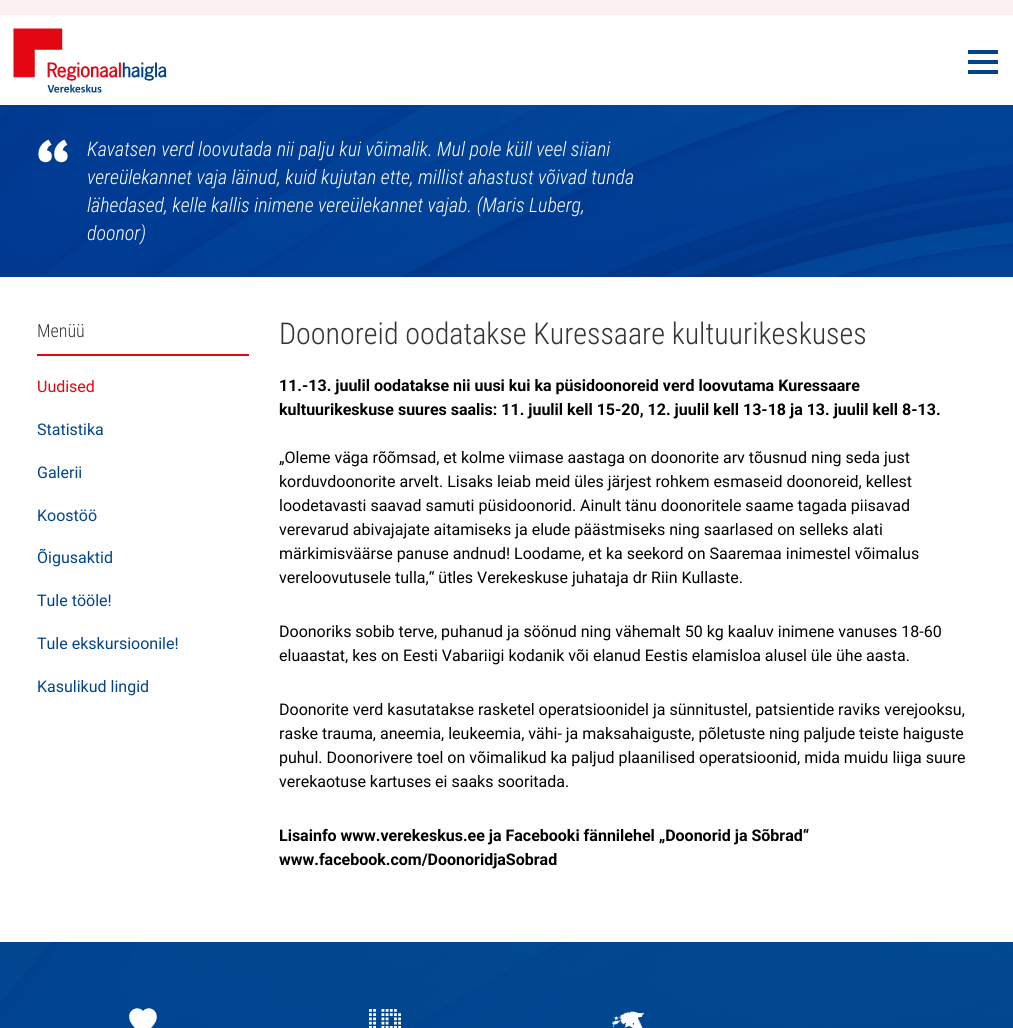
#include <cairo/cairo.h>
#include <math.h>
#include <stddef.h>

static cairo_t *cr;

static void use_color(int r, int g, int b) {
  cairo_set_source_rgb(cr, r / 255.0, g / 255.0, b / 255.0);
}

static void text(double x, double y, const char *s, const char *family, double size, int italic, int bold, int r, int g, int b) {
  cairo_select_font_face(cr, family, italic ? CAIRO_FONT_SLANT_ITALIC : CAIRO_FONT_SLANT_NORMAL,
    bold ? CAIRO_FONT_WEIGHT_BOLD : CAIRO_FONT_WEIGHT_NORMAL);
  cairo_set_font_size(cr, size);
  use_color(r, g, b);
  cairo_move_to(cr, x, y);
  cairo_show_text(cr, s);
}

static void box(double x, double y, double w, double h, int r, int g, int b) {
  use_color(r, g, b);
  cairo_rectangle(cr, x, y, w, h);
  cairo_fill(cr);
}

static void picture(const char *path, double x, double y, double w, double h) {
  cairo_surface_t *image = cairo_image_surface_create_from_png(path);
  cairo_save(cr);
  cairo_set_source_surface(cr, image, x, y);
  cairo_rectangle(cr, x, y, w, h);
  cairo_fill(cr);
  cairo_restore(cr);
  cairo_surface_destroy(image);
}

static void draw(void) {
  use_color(255, 255, 255);
  cairo_paint(cr);
  box(0, 0, 1013, 15, 253, 240, 241);
  picture("img_01.png", 13, 28, 154, 65);
  box(968, 50, 30, 4, 1, 68, 137);
  box(968, 60, 30, 4, 1, 68, 137);
  box(968, 70, 30, 4, 1, 68, 137);
  picture("img_02.png", 0, 105, 1013, 172);
  picture("img_03.png", 38, 139, 30, 24);
  box(37, 354, 212, 2, 227, 6, 19);
  picture("img_04.png", 0, 942, 1013, 86);
  picture("img_05.png", 129, 1008, 28, 20);
  picture("img_06.png", 369, 1009, 32, 19);
  picture("img_07.png", 612, 1011, 32, 17);
  text(87, 156, "Kavatsen verd loovutada nii palju kui võimalik. Mul pole küll veel siiani", "Roboto Condensed Light", 20, 1, 0, 255, 255, 255);
  text(87, 184, "vereülekannet vaja läinud, kuid kujutan ette, millist ahastust võivad tunda", "Roboto Condensed Light", 20, 1, 0, 255, 255, 255);
  text(87, 212, "lähedased, kelle kallis inimene vereülekannet vajab. (Maris Luberg,", "Roboto Condensed Light", 20, 1, 0, 255, 255, 255);
  text(87, 240, "doonor)", "Roboto Condensed Light", 20, 1, 0, 255, 255, 255);
  text(37, 337, "Menüü", "Roboto Condensed Light", 18, 0, 0, 51, 51, 51);
  text(37, 392, "Uudised", "Roboto", 16, 0, 0, 227, 6, 19);
  text(37, 435, "Statistika", "Roboto", 16, 0, 0, 1, 68, 137);
  text(37, 478, "Galerii", "Roboto", 16, 0, 0, 1, 68, 137);
  text(37, 521, "Koostöö", "Roboto", 16, 0, 0, 1, 68, 137);
  text(37, 563, "Õigusaktid", "Roboto", 16, 0, 0, 1, 68, 137);
  text(37, 606, "Tule tööle!", "Roboto", 16, 0, 0, 1, 68, 137);
  text(37, 649, "Tule ekskursioonile!", "Roboto", 16, 0, 0, 1, 68, 137);
  text(37, 692, "Kasulikud lingid", "Roboto", 16, 0, 0, 1, 68, 137);
  text(279, 344, "Doonoreid oodatakse Kuressaare kultuurikeskuses", "Roboto Condensed Light", 30, 0, 0, 51, 51, 51);
  text(279, 391, "11.-13. juulil oodatakse nii uusi kui ka püsidoonoreid verd loovutama Kuressaare", "Roboto", 16, 0, 1, 0, 0, 0);
  text(279, 415, "kultuurikeskuse suures saalis: 11. juulil kell 15-20, 12. juulil kell 13-18 ja 13. juulil kell 8-13.", "Roboto", 16, 0, 1, 0, 0, 0);
  text(279, 463, "„Oleme väga rõõmsad, et kolme viimase aastaga on doonorite arv tõusnud ning seda just", "Roboto", 16, 0, 0, 0, 0, 0);
  text(279, 487, "korduvdoonorite arvelt. Lisaks leiab meid üles järjest rohkem esmaseid doonoreid, kellest", "Roboto", 16, 0, 0, 0, 0, 0);
  text(279, 511, "loodetavasti saavad samuti püsidoonorid. Ainult tänu doonoritele saame tagada piisavad", "Roboto", 16, 0, 0, 0, 0, 0);
  text(279, 535, "verevarud abivajajate aitamiseks ja elude päästmiseks ning saarlased on selleks alati", "Roboto", 16, 0, 0, 0, 0, 0);
  text(279, 559, "märkimisväärse panuse andnud! Loodame, et ka seekord on Saaremaa inimestel võimalus", "Roboto", 16, 0, 0, 0, 0, 0);
  text(279, 583, "vereloovutusele tulla,“ ütles Verekeskuse juhataja dr Riin Kullaste.", "Roboto", 16, 0, 0, 0, 0, 0);
  text(279, 637, "Doonoriks sobib terve, puhanud ja söönud ning vähemalt 50 kg kaaluv inimene vanuses 18-60", "Roboto", 16, 0, 0, 0, 0, 0);
  text(279, 661, "eluaastat, kes on Eesti Vabariigi kodanik või elanud Eestis elamisloa alusel üle ühe aasta.", "Roboto", 16, 0, 0, 0, 0, 0);
  text(279, 715, "Doonorite verd kasutatakse rasketel operatsioonidel ja sünnitustel, patsientide raviks verejooksu,", "Roboto", 16, 0, 0, 0, 0, 0);
  text(279, 739, "raske trauma, aneemia, leukeemia, vähi- ja maksahaiguste, põletuste ning paljude teiste haiguste", "Roboto", 16, 0, 0, 0, 0, 0);
  text(279, 763, "puhul. Doonorivere toel on võimalikud ka paljud plaanilised operatsioonid, mida muidu liiga suure", "Roboto", 16, 0, 0, 0, 0, 0);
  text(279, 787, "verekaotuse kartuses ei saaks sooritada.", "Roboto", 16, 0, 0, 0, 0, 0);
  text(279, 841, "Lisainfo www.verekeskus.ee ja Facebooki fännilehel „Doonorid ja Sõbrad“", "Roboto", 16, 0, 1, 0, 0, 0);
  text(279, 865, "www.facebook.com/DoonoridjaSobrad", "Roboto", 16, 0, 1, 0, 0, 0);
}

int main(void) {
  cairo_surface_t *surface = cairo_image_surface_create(CAIRO_FORMAT_RGB24, 1013, 1028);
  cr = cairo_create(surface);
  cairo_font_options_t *options = cairo_font_options_create();
  cairo_font_options_set_hint_metrics(options, CAIRO_HINT_METRICS_OFF);
  cairo_font_options_set_hint_style(options, CAIRO_HINT_STYLE_NONE);
  cairo_set_font_options(cr, options);
  cairo_set_miter_limit(cr, 4);
  draw();
  cairo_surface_write_to_png(surface, "out.png");
  cairo_font_options_destroy(options);
  cairo_destroy(cr);
  cairo_surface_destroy(surface);
  return 0;
}
